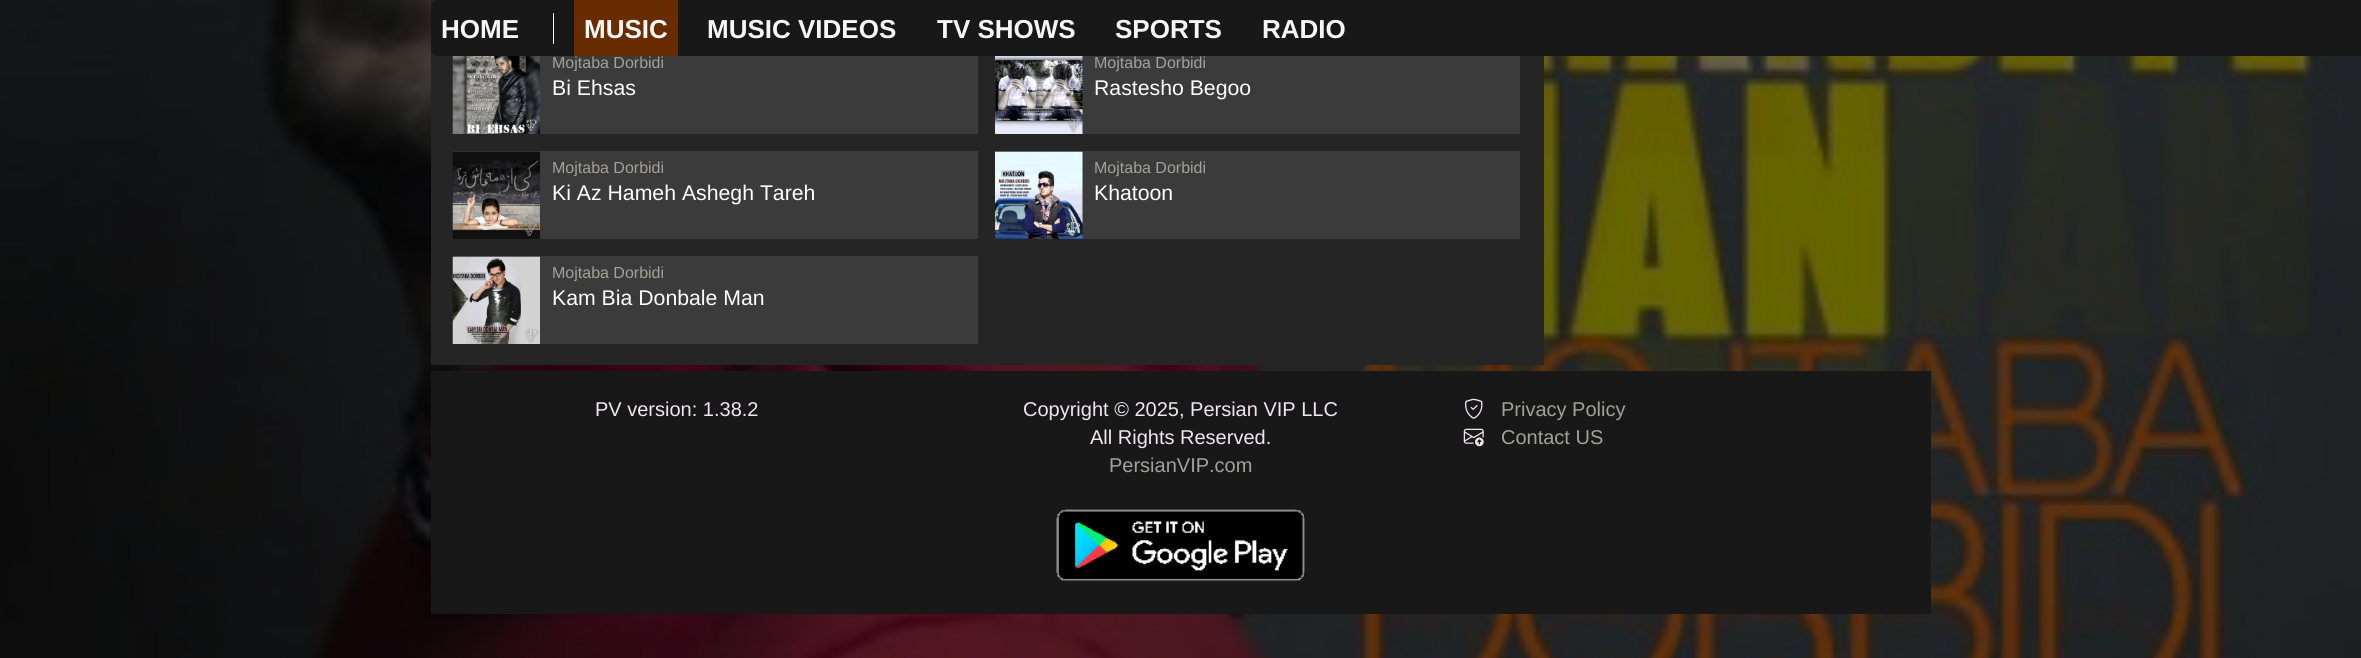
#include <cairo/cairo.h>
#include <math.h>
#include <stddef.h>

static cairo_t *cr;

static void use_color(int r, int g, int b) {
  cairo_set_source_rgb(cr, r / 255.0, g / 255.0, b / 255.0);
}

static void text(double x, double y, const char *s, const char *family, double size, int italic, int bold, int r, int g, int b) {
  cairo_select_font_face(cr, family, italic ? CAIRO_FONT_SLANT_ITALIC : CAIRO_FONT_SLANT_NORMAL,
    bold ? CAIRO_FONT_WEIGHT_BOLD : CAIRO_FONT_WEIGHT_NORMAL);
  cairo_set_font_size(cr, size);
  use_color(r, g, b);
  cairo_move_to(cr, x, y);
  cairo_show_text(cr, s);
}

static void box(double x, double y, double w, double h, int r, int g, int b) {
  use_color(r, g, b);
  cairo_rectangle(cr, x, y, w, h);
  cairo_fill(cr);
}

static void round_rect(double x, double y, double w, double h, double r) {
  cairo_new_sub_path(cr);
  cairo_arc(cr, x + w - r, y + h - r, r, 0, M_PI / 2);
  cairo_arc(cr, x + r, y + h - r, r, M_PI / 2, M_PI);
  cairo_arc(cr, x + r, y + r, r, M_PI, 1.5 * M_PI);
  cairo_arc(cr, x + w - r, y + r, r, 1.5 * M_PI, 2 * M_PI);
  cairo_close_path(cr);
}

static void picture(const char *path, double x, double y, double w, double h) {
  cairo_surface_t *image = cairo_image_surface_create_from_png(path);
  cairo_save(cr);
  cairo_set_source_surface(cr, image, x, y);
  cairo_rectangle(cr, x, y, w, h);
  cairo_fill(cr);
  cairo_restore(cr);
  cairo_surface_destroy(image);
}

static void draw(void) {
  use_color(255, 255, 255);
  cairo_paint(cr);
  picture("img_01.png", 0, 0, 2361, 658);
  box(431, 0, 1113, 365, 37, 37, 37);
  use_color(24, 24, 24);
  round_rect(431, 0, 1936, 56, 6);
  cairo_fill(cr);
  box(553, 13, 1, 31, 255, 255, 255);
  box(574, 0, 104, 56, 105, 44, 0);
  box(540, 56, 438, 78, 59, 59, 59);
  picture("img_02.png", 452, 56, 88, 78);
  box(1082, 56, 438, 78, 59, 59, 59);
  picture("img_03.png", 995, 56, 88, 78);
  box(453, 151, 525, 88, 59, 59, 59);
  picture("img_04.png", 452, 151, 88, 88);
  box(995, 151, 525, 88, 59, 59, 59);
  picture("img_05.png", 995, 151, 88, 88);
  box(453, 256, 525, 88, 59, 59, 59);
  picture("img_06.png", 452, 256, 88, 88);
  box(431, 371, 1500, 243, 24, 24, 24);
  picture("img_07.png", 1056, 509, 249, 73);
  picture("img_08.png", 1465, 398, 18, 21);
  picture("img_09.png", 1463, 428, 21, 19);
  text(441, 38, "HOME", "Liberation Sans", 26, 0, 1, 246, 246, 246);
  text(584, 38, "MUSIC", "Liberation Sans", 26, 0, 1, 246, 246, 246);
  text(707, 38, "MUSIC VIDEOS", "Liberation Sans", 26, 0, 1, 246, 246, 246);
  text(937, 38, "TV SHOWS", "Liberation Sans", 26, 0, 1, 246, 246, 246);
  text(1115, 38, "SPORTS", "Liberation Sans", 26, 0, 1, 246, 246, 246);
  text(1262, 38, "RADIO", "Liberation Sans", 26, 0, 1, 246, 246, 246);
  cairo_save(cr);
  cairo_rectangle(cr, 553, 53, 111, 18);
  cairo_clip(cr);
  text(552, 68, "Mojtaba Dorbidi", "Liberation Sans", 16, 0, 0, 162, 161, 151);
  cairo_restore(cr);
  text(552, 95, "Bi Ehsas", "Liberation Sans", 21.25, 0, 0, 255, 255, 255);
  text(1094, 68, "Mojtaba Dorbidi", "Liberation Sans", 16, 0, 0, 162, 161, 151);
  text(1094, 95, "Rastesho Begoo", "Liberation Sans", 21.25, 0, 0, 255, 255, 255);
  cairo_save(cr);
  cairo_rectangle(cr, 553, 158, 111, 18);
  cairo_clip(cr);
  text(552, 173, "Mojtaba Dorbidi", "Liberation Sans", 16, 0, 0, 162, 161, 151);
  cairo_restore(cr);
  text(552, 200, "Ki Az Hameh Ashegh Tareh", "Liberation Sans", 21.25, 0, 0, 255, 255, 255);
  text(1094, 173, "Mojtaba Dorbidi", "Liberation Sans", 16, 0, 0, 162, 161, 151);
  text(1094, 200, "Khatoon", "Liberation Sans", 21.25, 0, 0, 255, 255, 255);
  cairo_save(cr);
  cairo_rectangle(cr, 553, 263, 111, 18);
  cairo_clip(cr);
  text(552, 278, "Mojtaba Dorbidi", "Liberation Sans", 16, 0, 0, 162, 161, 151);
  cairo_restore(cr);
  text(552, 305, "Kam Bia Donbale Man", "Liberation Sans", 21.25, 0, 0, 255, 255, 255);
  text(595, 416, "PV version: 1.38.2", "Liberation Sans", 20, 0, 0, 240, 230, 240);
  text(1023, 416, "Copyright © 2025, Persian VIP LLC", "Liberation Sans", 20, 0, 0, 240, 230, 240);
  text(1090, 444, "All Rights Reserved.", "Liberation Sans", 20, 0, 0, 240, 230, 240);
  text(1109, 472, "PersianVIP.com", "Liberation Sans", 20, 0, 0, 162, 161, 151);
  text(1501, 416, "Privacy Policy", "Liberation Sans", 20, 0, 0, 162, 161, 151);
  text(1501, 444, "Contact US", "Liberation Sans", 20, 0, 0, 162, 161, 151);
}

int main(void) {
  cairo_surface_t *surface = cairo_image_surface_create(CAIRO_FORMAT_RGB24, 2361, 658);
  cr = cairo_create(surface);
  cairo_font_options_t *options = cairo_font_options_create();
  cairo_font_options_set_hint_metrics(options, CAIRO_HINT_METRICS_OFF);
  cairo_font_options_set_hint_style(options, CAIRO_HINT_STYLE_NONE);
  cairo_set_font_options(cr, options);
  cairo_set_miter_limit(cr, 4);
  draw();
  cairo_surface_write_to_png(surface, "out.png");
  cairo_font_options_destroy(options);
  cairo_destroy(cr);
  cairo_surface_destroy(surface);
  return 0;
}
